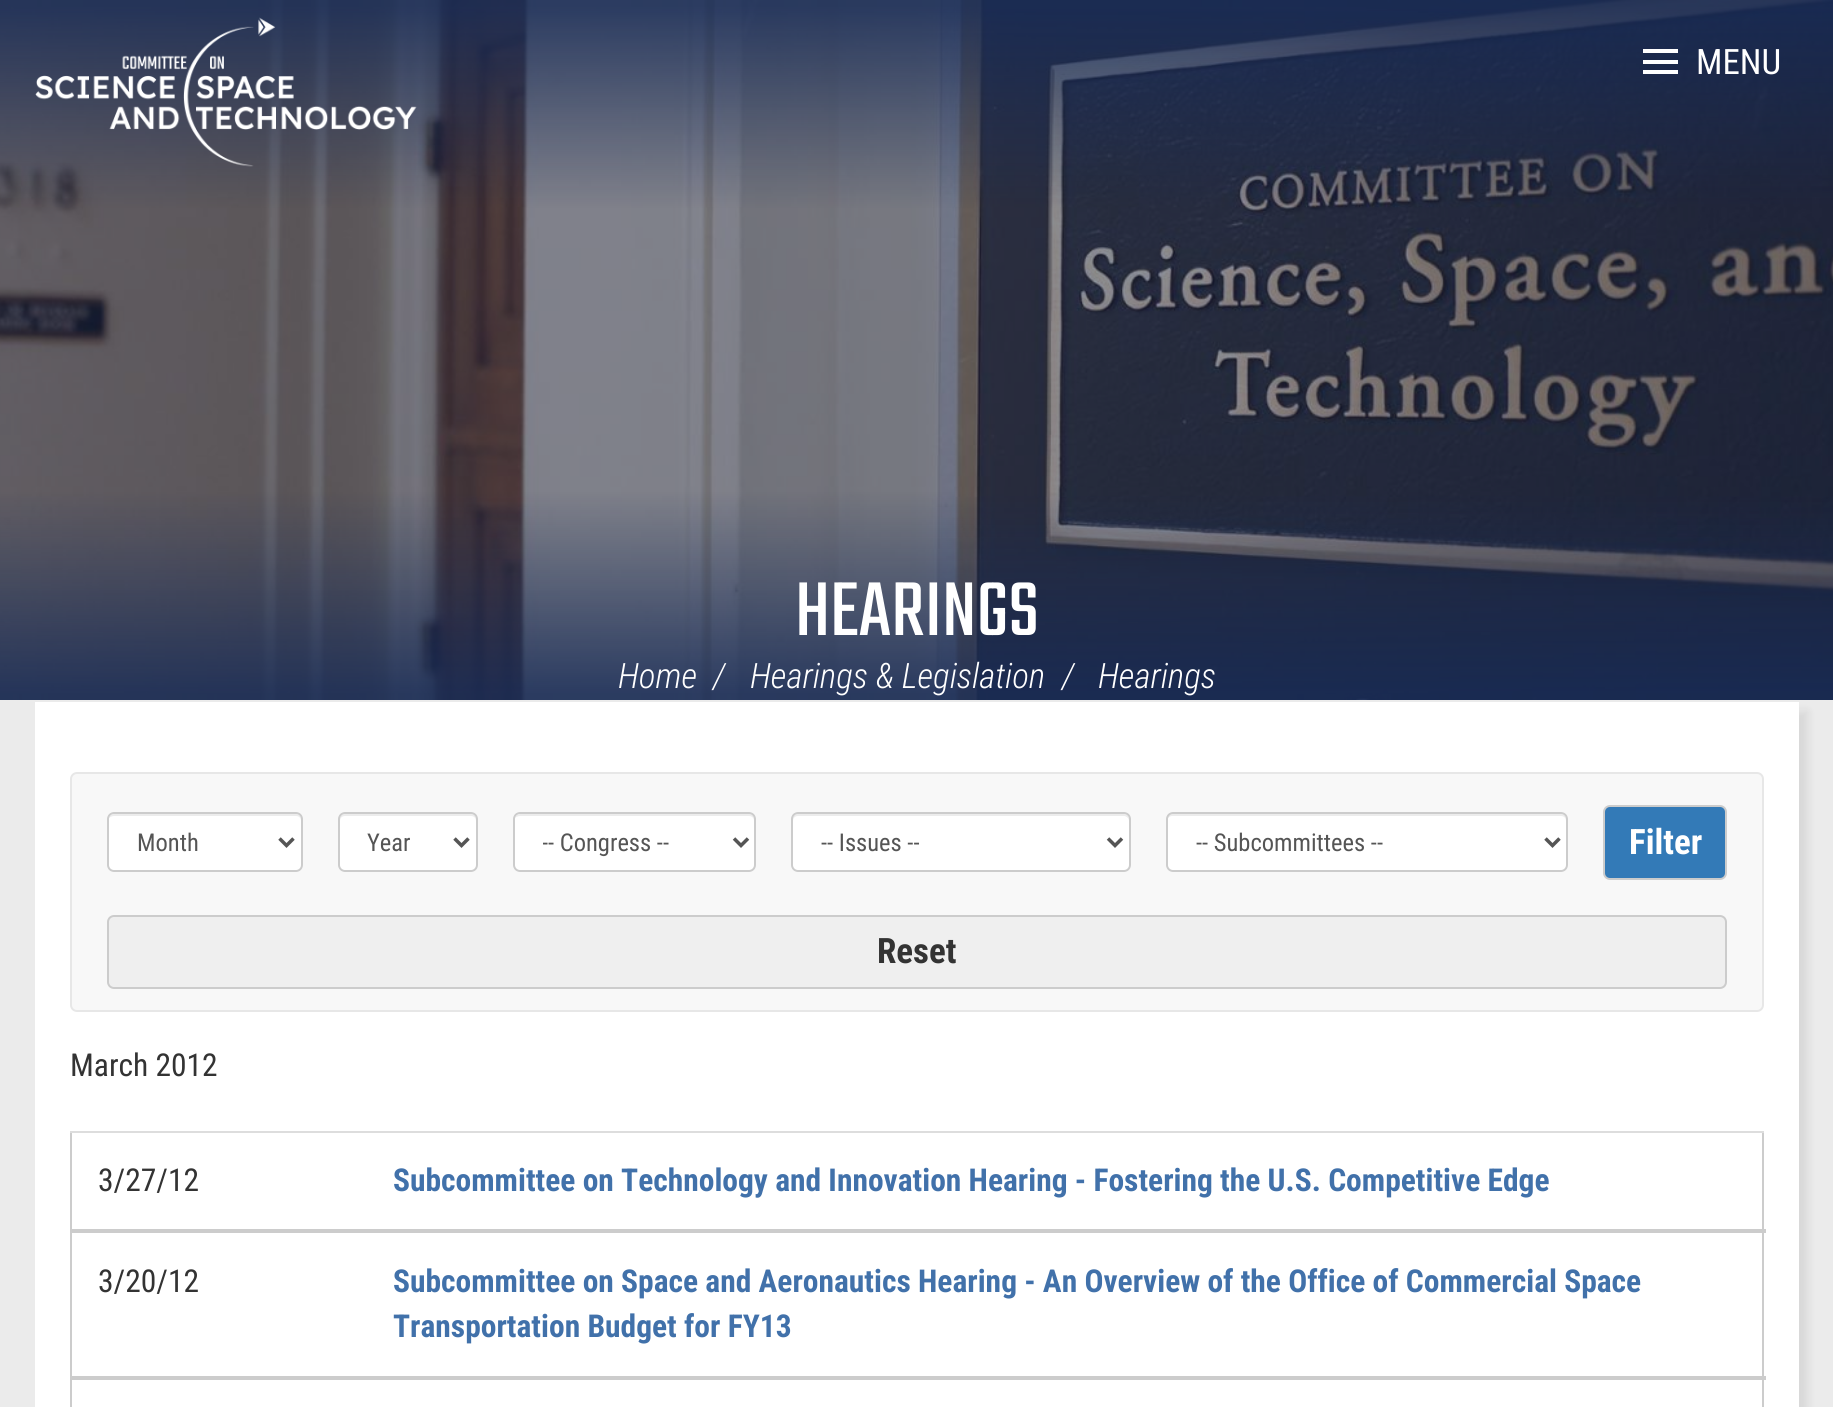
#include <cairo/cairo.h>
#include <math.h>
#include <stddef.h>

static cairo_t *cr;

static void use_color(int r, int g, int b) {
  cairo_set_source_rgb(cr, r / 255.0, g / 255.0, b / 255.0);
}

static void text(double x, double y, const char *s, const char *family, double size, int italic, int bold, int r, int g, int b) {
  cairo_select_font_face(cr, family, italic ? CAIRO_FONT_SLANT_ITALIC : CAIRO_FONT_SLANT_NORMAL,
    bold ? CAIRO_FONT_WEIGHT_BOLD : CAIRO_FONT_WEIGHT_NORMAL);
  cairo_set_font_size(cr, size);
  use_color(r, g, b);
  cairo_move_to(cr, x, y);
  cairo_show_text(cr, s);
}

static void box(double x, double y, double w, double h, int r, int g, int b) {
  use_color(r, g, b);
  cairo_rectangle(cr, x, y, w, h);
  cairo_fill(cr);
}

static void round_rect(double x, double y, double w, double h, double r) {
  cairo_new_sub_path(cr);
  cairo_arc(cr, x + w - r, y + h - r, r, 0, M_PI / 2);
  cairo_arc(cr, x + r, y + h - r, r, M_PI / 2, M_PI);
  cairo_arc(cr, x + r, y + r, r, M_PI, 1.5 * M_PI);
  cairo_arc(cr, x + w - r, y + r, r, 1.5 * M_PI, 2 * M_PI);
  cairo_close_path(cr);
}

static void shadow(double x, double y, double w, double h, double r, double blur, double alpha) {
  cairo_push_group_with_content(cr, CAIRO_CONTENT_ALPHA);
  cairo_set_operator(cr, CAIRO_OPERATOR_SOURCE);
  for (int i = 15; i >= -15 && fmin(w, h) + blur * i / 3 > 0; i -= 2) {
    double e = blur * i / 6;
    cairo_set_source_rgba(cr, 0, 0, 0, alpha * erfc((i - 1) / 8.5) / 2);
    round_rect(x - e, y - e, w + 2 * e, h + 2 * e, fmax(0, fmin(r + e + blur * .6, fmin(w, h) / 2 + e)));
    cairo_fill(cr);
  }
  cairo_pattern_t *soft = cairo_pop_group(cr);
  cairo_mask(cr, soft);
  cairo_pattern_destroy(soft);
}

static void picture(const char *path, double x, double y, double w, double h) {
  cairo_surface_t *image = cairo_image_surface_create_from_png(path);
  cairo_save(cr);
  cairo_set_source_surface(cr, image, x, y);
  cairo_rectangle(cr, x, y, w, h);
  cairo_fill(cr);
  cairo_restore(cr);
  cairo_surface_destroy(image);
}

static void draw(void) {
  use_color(235, 235, 235);
  cairo_paint(cr);
  picture("img_01.png", 0, 0, 1833, 700);
  picture("img_02.png", 35, 17, 382, 150);
  box(1643, 60, 35, 4, 255, 255, 255);
  box(1643, 49, 35, 4, 255, 255, 255);
  box(1643, 70, 35, 4, 255, 255, 255);
  use_color(0, 0, 0);
  shadow(44, 711, 1764, 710, 0, 4.5, 0.08);
  box(35, 702, 1764, 705, 255, 255, 255);
  use_color(248, 248, 248);
  round_rect(71, 773, 1692, 238, 6);
  cairo_fill_preserve(cr);
  use_color(231, 231, 231);
  cairo_stroke(cr);
  use_color(255, 255, 255);
  round_rect(107, 812, 196, 60, 7);
  cairo_fill(cr);
  use_color(236, 236, 236);
  cairo_new_path(cr);
  cairo_move_to(cr, 114, 816);
  cairo_line_to(cr, 296, 816);
  cairo_curve_to(cr, 299, 816, 301, 818, 301, 821);
  cairo_line_to(cr, 301, 819);
  cairo_curve_to(cr, 301, 816, 299, 814, 296, 814);
  cairo_line_to(cr, 114, 814);
  cairo_curve_to(cr, 112, 814, 109, 816, 109, 818);
  cairo_curve_to(cr, 110, 817, 112, 816, 114, 816);
  cairo_close_path(cr);
  cairo_fill(cr);
  round_rect(108, 813, 194, 58, 6);
  use_color(204, 204, 204);
  cairo_stroke(cr);
  cairo_new_path(cr);
  cairo_move_to(cr, 279.5, 838.5);
  cairo_line_to(cr, 286.5, 845.5);
  cairo_line_to(cr, 293.5, 838.5);
  use_color(85, 85, 85);
  cairo_set_line_width(cr, 3.5);
  cairo_stroke(cr);
  use_color(255, 255, 255);
  round_rect(338, 812, 140, 60, 7);
  cairo_fill(cr);
  use_color(236, 236, 236);
  cairo_new_path(cr);
  cairo_move_to(cr, 345, 816);
  cairo_line_to(cr, 471, 816);
  cairo_curve_to(cr, 474, 816, 476, 818, 476, 821);
  cairo_line_to(cr, 476, 819);
  cairo_curve_to(cr, 476, 816, 474, 814, 471, 814);
  cairo_line_to(cr, 345, 814);
  cairo_curve_to(cr, 342, 814, 340, 816, 340, 819);
  cairo_line_to(cr, 340, 821);
  cairo_curve_to(cr, 340, 818, 342, 816, 345, 816);
  cairo_close_path(cr);
  cairo_fill(cr);
  round_rect(339, 813, 138, 58, 6);
  use_color(204, 204, 204);
  cairo_set_line_width(cr, 2);
  cairo_stroke(cr);
  cairo_new_path(cr);
  cairo_move_to(cr, 454.5, 838.5);
  cairo_line_to(cr, 461.5, 845.5);
  cairo_line_to(cr, 468.5, 838.5);
  use_color(85, 85, 85);
  cairo_set_line_width(cr, 3.5);
  cairo_stroke(cr);
  use_color(255, 255, 255);
  round_rect(513, 812, 243, 60, 7);
  cairo_fill(cr);
  use_color(236, 236, 236);
  cairo_new_path(cr);
  cairo_move_to(cr, 520, 816);
  cairo_line_to(cr, 749, 816);
  cairo_curve_to(cr, 752, 816, 754, 818, 754, 821);
  cairo_curve_to(cr, 754, 818, 754, 815, 750, 814);
  cairo_line_to(cr, 520, 814);
  cairo_line_to(cr, 517, 815);
  cairo_line_to(cr, 515, 818);
  cairo_curve_to(cr, 516, 817, 518, 816, 520, 816);
  cairo_close_path(cr);
  cairo_fill(cr);
  round_rect(514, 813, 241, 58, 6);
  use_color(204, 204, 204);
  cairo_set_line_width(cr, 2);
  cairo_stroke(cr);
  cairo_new_path(cr);
  cairo_move_to(cr, 734, 838.5);
  cairo_line_to(cr, 741, 845.5);
  cairo_line_to(cr, 748, 838.5);
  use_color(85, 85, 85);
  cairo_set_line_width(cr, 3.5);
  cairo_stroke(cr);
  use_color(255, 255, 255);
  round_rect(791, 812, 340, 60, 7);
  cairo_fill(cr);
  use_color(236, 236, 236);
  cairo_new_path(cr);
  cairo_move_to(cr, 798, 816);
  cairo_line_to(cr, 1124, 816);
  cairo_curve_to(cr, 1126, 816, 1129, 818, 1129, 821);
  cairo_line_to(cr, 1129, 819);
  cairo_curve_to(cr, 1129, 816, 1127, 814, 1124, 814);
  cairo_line_to(cr, 798, 814);
  cairo_curve_to(cr, 795, 814, 793, 816, 793, 819);
  cairo_line_to(cr, 793, 821);
  cairo_curve_to(cr, 793, 818, 795, 816, 798, 816);
  cairo_close_path(cr);
  cairo_fill(cr);
  round_rect(792, 813, 338, 58, 6);
  use_color(204, 204, 204);
  cairo_set_line_width(cr, 2);
  cairo_stroke(cr);
  cairo_new_path(cr);
  cairo_move_to(cr, 1108, 838.5);
  cairo_line_to(cr, 1115, 845.5);
  cairo_line_to(cr, 1122, 838.5);
  use_color(85, 85, 85);
  cairo_set_line_width(cr, 3.5);
  cairo_stroke(cr);
  use_color(255, 255, 255);
  round_rect(1166, 812, 402, 60, 7);
  cairo_fill(cr);
  use_color(236, 236, 236);
  cairo_new_path(cr);
  cairo_move_to(cr, 1172, 816);
  cairo_line_to(cr, 1561, 816);
  cairo_curve_to(cr, 1564, 816, 1566, 818, 1566, 821);
  cairo_line_to(cr, 1566, 819);
  cairo_curve_to(cr, 1566, 816, 1564, 814, 1561, 814);
  cairo_line_to(cr, 1172, 814);
  cairo_curve_to(cr, 1169, 814, 1167, 816, 1167, 819);
  cairo_line_to(cr, 1167, 821);
  cairo_curve_to(cr, 1167, 818, 1170, 816, 1172, 816);
  cairo_close_path(cr);
  cairo_fill(cr);
  round_rect(1167, 813, 400, 58, 6);
  use_color(204, 204, 204);
  cairo_set_line_width(cr, 2);
  cairo_stroke(cr);
  cairo_new_path(cr);
  cairo_move_to(cr, 1545.5, 838.5);
  cairo_line_to(cr, 1552.5, 845.5);
  cairo_line_to(cr, 1559.5, 838.5);
  use_color(85, 85, 85);
  cairo_set_line_width(cr, 3.5);
  cairo_stroke(cr);
  use_color(51, 122, 183);
  round_rect(1604, 806, 122, 73, 6);
  cairo_fill_preserve(cr);
  use_color(204, 204, 204);
  cairo_set_line_width(cr, 2);
  cairo_stroke(cr);
  use_color(239, 239, 239);
  round_rect(108, 916, 1618, 72, 6);
  cairo_fill_preserve(cr);
  use_color(204, 204, 204);
  cairo_stroke(cr);
  box(1762, 1131, 2, 276, 204, 204, 204);
  box(70, 1131, 2, 276, 204, 204, 204);
  box(70, 1131, 1694, 2, 221, 221, 221);
  box(70, 1229, 1696, 4, 204, 204, 204);
  box(70, 1376, 1696, 4, 204, 204, 204);
  text(1696, 74, "MENU", "Roboto Condensed", 35, 0, 0, 255, 255, 255);
  text(795, 635, "HEARINGS", "Teko", 84, 0, 0, 255, 255, 255);
  text(618, 688, "Home", "Roboto Condensed Light", 35, 1, 0, 255, 255, 255);
  text(713, 688, "/", "Roboto Condensed Light", 35, 1, 0, 255, 255, 255);
  text(750, 688, "Hearings & Legislation", "Roboto Condensed Light", 35, 1, 0, 255, 255, 255);
  text(1062, 688, "/", "Roboto Condensed Light", 35, 1, 0, 255, 255, 255);
  text(1098, 688, "Hearings", "Roboto Condensed Light", 35, 1, 0, 255, 255, 255);
  text(137, 851, "Month", "Roboto Condensed", 24.5, 0, 0, 85, 85, 85);
  text(367, 851, "Year", "Roboto Condensed", 24.5, 0, 0, 85, 85, 85);
  cairo_save(cr);
  cairo_rectangle(cr, 543, 826, 162, 32);
  cairo_clip(cr);
  text(542, 851, "-- Congress --", "Roboto Condensed", 24.5, 0, 0, 85, 85, 85);
  cairo_restore(cr);
  text(821, 851, "-- Issues --", "Roboto Condensed", 24.5, 0, 0, 85, 85, 85);
  text(1196, 851, "-- Subcommittees --", "Roboto Condensed", 24.5, 0, 0, 85, 85, 85);
  text(1629, 854, "Filter", "Roboto Condensed", 35, 0, 1, 255, 255, 255);
  text(877, 963, "Reset", "Roboto Condensed", 35, 0, 1, 51, 51, 51);
  text(70, 1076, "March 2012", "Roboto Condensed", 31.5, 0, 0, 51, 51, 51);
  text(98, 1191, "3/27/12", "Roboto Condensed", 31.5, 0, 0, 51, 51, 51);
  text(393, 1191, "Subcommittee on Technology and Innovation Hearing - Fostering the U.S. Competitive Edge", "Roboto Condensed", 31.5, 0, 1, 65, 113, 170);
  text(98, 1292, "3/20/12", "Roboto Condensed", 31.5, 0, 0, 51, 51, 51);
  text(393, 1292, "Subcommittee on Space and Aeronautics Hearing - An Overview of the Office of Commercial Space", "Roboto Condensed", 31.5, 0, 1, 65, 113, 170);
  text(393, 1337, "Transportation Budget for FY13", "Roboto Condensed", 31.5, 0, 1, 65, 113, 170);
}

int main(void) {
  cairo_surface_t *surface = cairo_image_surface_create(CAIRO_FORMAT_RGB24, 1833, 1407);
  cr = cairo_create(surface);
  cairo_font_options_t *options = cairo_font_options_create();
  cairo_font_options_set_hint_metrics(options, CAIRO_HINT_METRICS_OFF);
  cairo_font_options_set_hint_style(options, CAIRO_HINT_STYLE_NONE);
  cairo_set_font_options(cr, options);
  cairo_set_miter_limit(cr, 4);
  draw();
  cairo_surface_write_to_png(surface, "out.png");
  cairo_font_options_destroy(options);
  cairo_destroy(cr);
  cairo_surface_destroy(surface);
  return 0;
}
